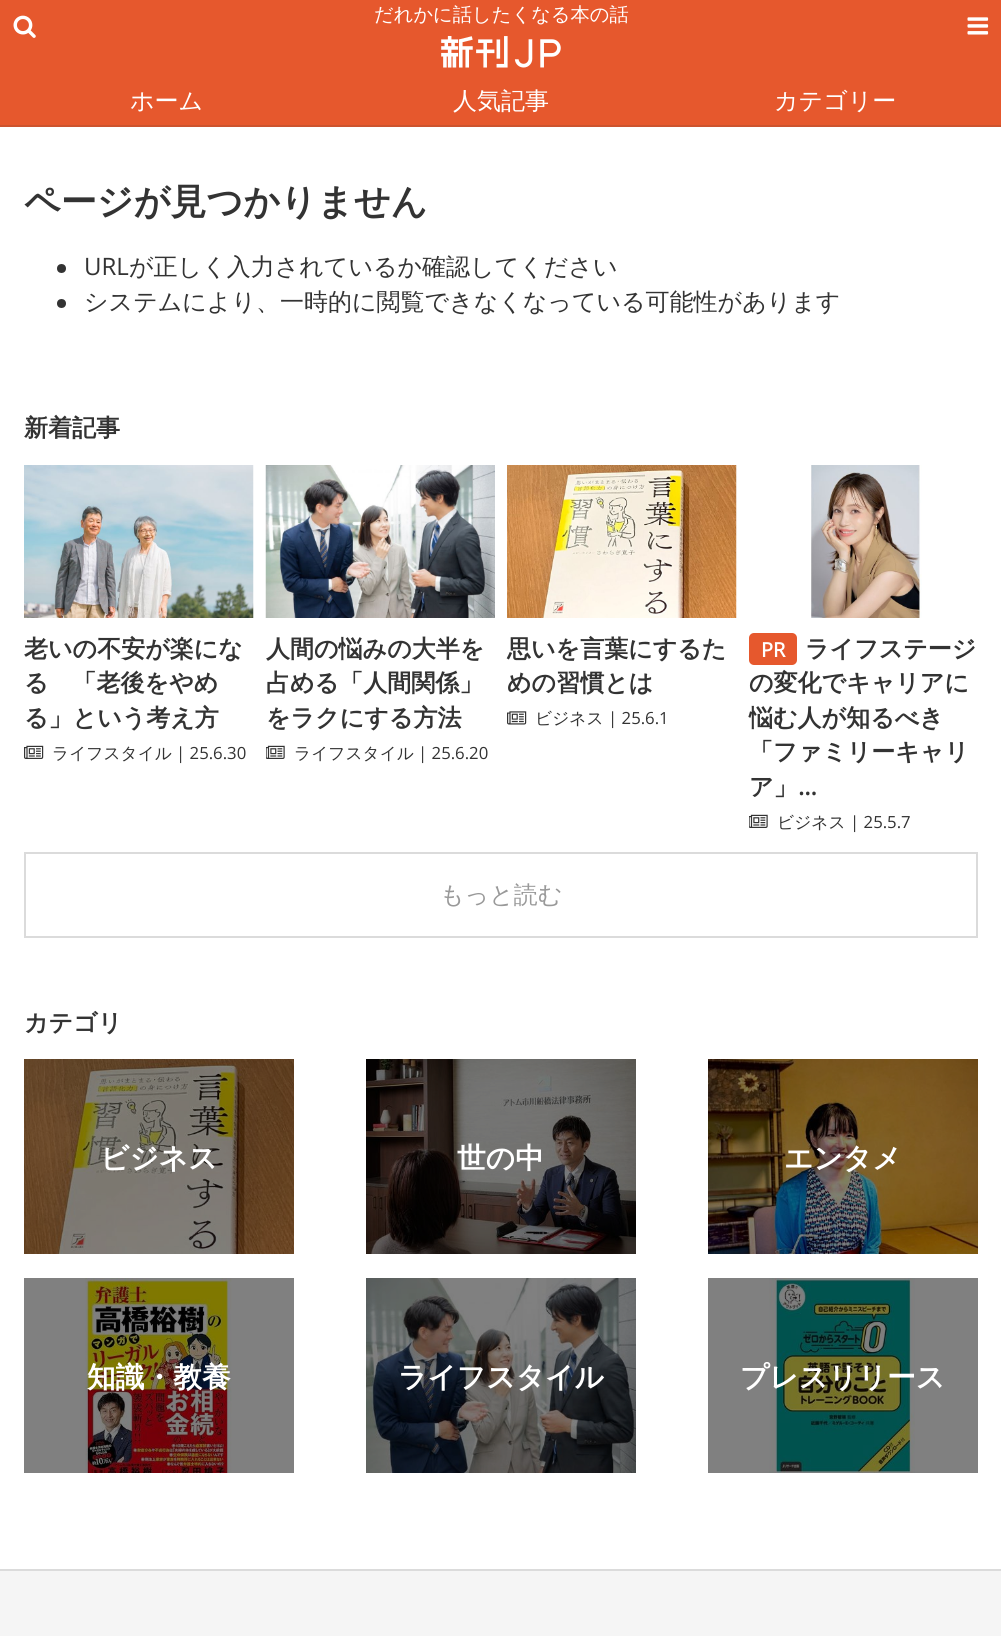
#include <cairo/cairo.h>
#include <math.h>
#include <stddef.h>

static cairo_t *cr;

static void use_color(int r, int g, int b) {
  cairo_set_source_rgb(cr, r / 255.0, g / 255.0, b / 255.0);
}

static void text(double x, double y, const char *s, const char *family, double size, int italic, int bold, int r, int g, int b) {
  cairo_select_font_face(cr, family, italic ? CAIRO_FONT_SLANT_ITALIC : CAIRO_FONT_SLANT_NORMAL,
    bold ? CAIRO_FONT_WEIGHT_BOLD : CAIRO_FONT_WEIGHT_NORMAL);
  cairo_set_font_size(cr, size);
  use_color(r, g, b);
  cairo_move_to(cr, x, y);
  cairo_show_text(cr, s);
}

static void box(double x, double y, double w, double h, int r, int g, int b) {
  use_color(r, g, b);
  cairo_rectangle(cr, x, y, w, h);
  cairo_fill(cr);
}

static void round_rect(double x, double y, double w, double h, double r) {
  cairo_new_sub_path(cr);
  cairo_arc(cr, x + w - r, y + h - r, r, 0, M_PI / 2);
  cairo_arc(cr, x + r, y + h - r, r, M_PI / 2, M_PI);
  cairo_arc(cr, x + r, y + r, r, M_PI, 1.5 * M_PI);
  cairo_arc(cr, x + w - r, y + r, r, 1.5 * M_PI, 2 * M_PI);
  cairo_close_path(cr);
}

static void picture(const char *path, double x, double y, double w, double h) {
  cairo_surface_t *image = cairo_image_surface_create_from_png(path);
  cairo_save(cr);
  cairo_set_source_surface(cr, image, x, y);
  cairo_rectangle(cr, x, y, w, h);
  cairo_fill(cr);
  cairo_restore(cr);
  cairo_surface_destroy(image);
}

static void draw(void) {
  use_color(255, 255, 255);
  cairo_paint(cr);
  box(708, 1278, 270, 195, 128, 128, 128);
  box(24, 1278, 270, 195, 128, 128, 128);
  box(0, 0, 1001, 125, 230, 88, 45);
  box(0, 125, 1001, 2, 204, 83, 46);
  picture("img_01.png", 13, 15, 23, 23);
  picture("img_02.png", 967, 17, 22, 18);
  picture("img_03.png", 441, 36, 120, 32);
  use_color(51, 51, 51);
  cairo_arc(cr, 61.5, 268.5, 4.5, 0, 2 * M_PI);
  cairo_fill(cr);
  cairo_arc(cr, 61.5, 303.5, 4.5, 0, 2 * M_PI);
  cairo_fill(cr);
  picture("img_04.png", 24, 465, 230, 153);
  picture("img_05.png", 24, 745, 20, 14);
  picture("img_06.png", 265, 465, 230, 153);
  picture("img_07.png", 266, 745, 19, 14);
  picture("img_08.png", 507, 465, 230, 153);
  picture("img_09.png", 507, 711, 20, 14);
  picture("img_10.png", 811, 465, 111, 153);
  use_color(230, 88, 45);
  round_rect(749, 633, 48, 32, 5);
  cairo_fill(cr);
  picture("img_07.png", 749, 814, 19, 14);
  cairo_rectangle(cr, 25, 853, 952, 84);
  use_color(219, 219, 219);
  cairo_stroke(cr);
  picture("img_11.png", 24, 1059, 270, 195);
  picture("img_12.png", 366, 1059, 270, 195);
  picture("img_13.png", 708, 1059, 270, 195);
  picture("img_14.png", 85, 1278, 147, 195);
  picture("img_15.png", 366, 1278, 270, 195);
  picture("img_16.png", 769, 1278, 146, 195);
  box(0, 1571, 1001, 65, 245, 245, 245);
  box(0, 1569, 1001, 2, 219, 219, 219);
  text(374, 21, "だれかに話したくなる本の話", "WenQuanYi Zen Hei Medium", 19.25, 0, 0, 255, 255, 255);
  text(130, 109, "ホーム", "WenQuanYi Zen Hei Medium", 24, 0, 0, 255, 255, 255);
  text(453, 109, "人気記事", "WenQuanYi Zen Hei Medium", 24, 0, 0, 255, 255, 255);
  text(774, 109, "カテゴリー", "WenQuanYi Zen Hei Medium", 24, 0, 0, 255, 255, 255);
  text(24, 214, "ページが見つかりません", "WenQuanYi Zen Hei", 36, 0, 1, 51, 51, 51);
  text(84, 275, "URL", "Open Sans", 24, 0, 0, 51, 51, 51);
  text(129, 275, "が正しく入力されているか確認してください", "WenQuanYi Zen Hei Medium", 24, 0, 0, 51, 51, 51);
  text(84, 310, "システムにより、一時的に閲覧できなくなっている可能性があります", "WenQuanYi Zen Hei Medium", 24, 0, 0, 51, 51, 51);
  text(24, 436, "新着記事", "WenQuanYi Zen Hei", 24, 0, 1, 51, 51, 51);
  text(24, 657, "老いの不安が楽にな", "WenQuanYi Zen Hei", 24, 0, 1, 51, 51, 51);
  text(24, 691, "る　「老後をやめ", "WenQuanYi Zen Hei", 24, 0, 1, 51, 51, 51);
  text(24, 726, "る」という考え方", "WenQuanYi Zen Hei", 24, 0, 1, 51, 51, 51);
  text(52, 759, "ライフスタイル", "WenQuanYi Zen Hei Medium", 16.75, 0, 0, 51, 51, 51);
  text(176, 759, "| 25.6.30", "Open Sans", 16.75, 0, 0, 51, 51, 51);
  text(266, 657, "人間の悩みの大半を", "WenQuanYi Zen Hei", 24, 0, 1, 51, 51, 51);
  text(266, 691, "占める「人間関係」", "WenQuanYi Zen Hei", 24, 0, 1, 51, 51, 51);
  text(266, 726, "をラクにする方法", "WenQuanYi Zen Hei", 24, 0, 1, 51, 51, 51);
  text(294, 759, "ライフスタイル", "WenQuanYi Zen Hei Medium", 16.75, 0, 0, 51, 51, 51);
  text(418, 759, "| 25.6.20", "Open Sans", 16.75, 0, 0, 51, 51, 51);
  text(507, 657, "思いを言葉にするた", "WenQuanYi Zen Hei", 24, 0, 1, 51, 51, 51);
  text(507, 691, "めの習慣とは", "WenQuanYi Zen Hei", 24, 0, 1, 51, 51, 51);
  text(535, 724, "ビジネス", "WenQuanYi Zen Hei Medium", 16.75, 0, 0, 51, 51, 51);
  text(608, 724, "| 25.6.1", "Open Sans", 16.75, 0, 0, 51, 51, 51);
  text(761, 657, "PR", "Open Sans", 20, 0, 1, 255, 255, 255);
  text(805, 657, "ライフステージ", "WenQuanYi Zen Hei", 24, 0, 1, 51, 51, 51);
  text(749, 691, "の変化でキャリアに", "WenQuanYi Zen Hei", 24, 0, 1, 51, 51, 51);
  text(749, 726, "悩む人が知るべき", "WenQuanYi Zen Hei", 24, 0, 1, 51, 51, 51);
  text(749, 760, "「ファミリーキャリ", "WenQuanYi Zen Hei", 24, 0, 1, 51, 51, 51);
  text(749, 795, "ア」", "WenQuanYi Zen Hei", 24, 0, 1, 51, 51, 51);
  text(798, 795, "...", "Open Sans", 24, 0, 1, 51, 51, 51);
  text(777, 828, "ビジネス", "WenQuanYi Zen Hei Medium", 16.75, 0, 0, 51, 51, 51);
  text(850, 828, "| 25.5.7", "Open Sans", 16.75, 0, 0, 51, 51, 51);
  text(440, 903, "もっと読む", "WenQuanYi Zen Hei Medium", 24, 0, 0, 153, 153, 153);
  text(24, 1031, "カテゴリ", "WenQuanYi Zen Hei", 24, 0, 1, 51, 51, 51);
  text(100, 1168, "ビジネス", "WenQuanYi Zen Hei", 28.75, 0, 1, 255, 255, 255);
  text(457, 1168, "世の中", "WenQuanYi Zen Hei", 28.75, 0, 1, 255, 255, 255);
  text(784, 1168, "エンタメ", "WenQuanYi Zen Hei", 28.75, 0, 1, 255, 255, 255);
  text(87, 1387, "知識・教養", "WenQuanYi Zen Hei", 28.75, 0, 1, 255, 255, 255);
  text(398, 1387, "ライフスタイル", "WenQuanYi Zen Hei", 28.75, 0, 1, 255, 255, 255);
  text(740, 1387, "プレスリリース", "WenQuanYi Zen Hei", 28.75, 0, 1, 255, 255, 255);
}

int main(void) {
  cairo_surface_t *surface = cairo_image_surface_create(CAIRO_FORMAT_RGB24, 1001, 1636);
  cr = cairo_create(surface);
  cairo_font_options_t *options = cairo_font_options_create();
  cairo_font_options_set_hint_metrics(options, CAIRO_HINT_METRICS_OFF);
  cairo_font_options_set_hint_style(options, CAIRO_HINT_STYLE_NONE);
  cairo_set_font_options(cr, options);
  cairo_set_miter_limit(cr, 4);
  draw();
  cairo_surface_write_to_png(surface, "out.png");
  cairo_font_options_destroy(options);
  cairo_destroy(cr);
  cairo_surface_destroy(surface);
  return 0;
}
